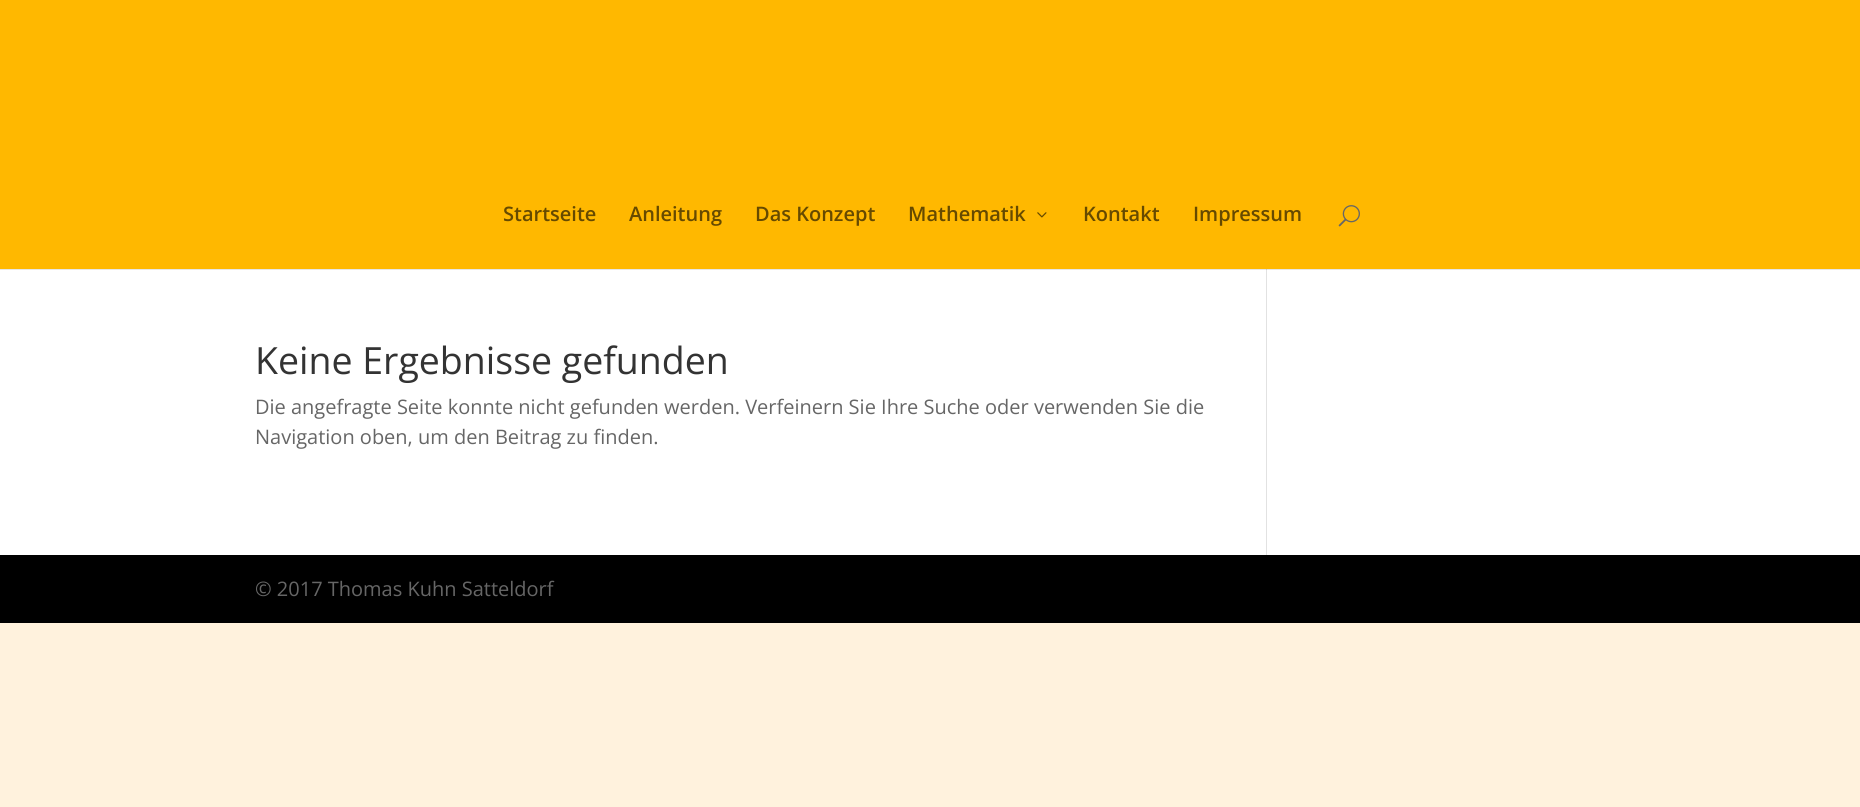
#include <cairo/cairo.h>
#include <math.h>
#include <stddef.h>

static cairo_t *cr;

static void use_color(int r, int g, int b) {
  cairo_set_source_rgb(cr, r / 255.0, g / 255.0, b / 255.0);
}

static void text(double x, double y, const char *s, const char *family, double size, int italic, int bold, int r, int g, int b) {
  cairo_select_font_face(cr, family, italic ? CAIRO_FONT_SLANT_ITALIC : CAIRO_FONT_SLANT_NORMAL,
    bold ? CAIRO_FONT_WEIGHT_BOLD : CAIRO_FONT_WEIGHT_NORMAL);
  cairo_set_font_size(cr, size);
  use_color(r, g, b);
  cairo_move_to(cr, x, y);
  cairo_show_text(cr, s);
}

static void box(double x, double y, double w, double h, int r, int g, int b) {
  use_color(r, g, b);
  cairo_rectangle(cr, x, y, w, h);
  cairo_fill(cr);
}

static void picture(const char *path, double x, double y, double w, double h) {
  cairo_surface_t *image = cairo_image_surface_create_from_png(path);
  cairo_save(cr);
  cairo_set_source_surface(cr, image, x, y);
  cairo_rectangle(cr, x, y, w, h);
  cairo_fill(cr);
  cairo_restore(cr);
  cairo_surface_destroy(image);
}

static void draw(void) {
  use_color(255, 242, 221);
  cairo_paint(cr);
  box(0, 0, 1860, 269, 255, 184, 0);
  picture("img_01.png", 1037, 212, 10, 6);
  picture("img_02.png", 1338, 205, 22, 22);
  box(0, 270, 1860, 285, 255, 255, 255);
  box(0, 269, 1860, 1, 230, 230, 230);
  box(1266, 269, 1, 286, 226, 226, 226);
  box(1266, 269, 1, 1, 203, 203, 203);
  box(0, 555, 1860, 68, 0, 0, 0);
  text(503, 221, "Startseite", "Open Sans SemiBold", 20, 0, 0, 102, 74, 0);
  text(629, 221, "Anleitung", "Open Sans SemiBold", 20, 0, 0, 102, 74, 0);
  text(755, 221, "Das Konzept", "Open Sans SemiBold", 20, 0, 0, 102, 74, 0);
  text(908, 221, "Mathematik", "Open Sans SemiBold", 20, 0, 0, 102, 74, 0);
  text(1083, 221, "Kontakt", "Open Sans SemiBold", 20, 0, 0, 102, 74, 0);
  text(1193, 221, "Impressum", "Open Sans SemiBold", 20, 0, 0, 102, 74, 0);
  text(255, 374, "Keine Ergebnisse gefunden", "Open Sans", 37.5, 0, 0, 51, 51, 51);
  text(255, 414, "Die angefragte Seite konnte nicht gefunden werden. Verfeinern Sie Ihre Suche oder verwenden Sie die", "Open Sans", 20, 0, 0, 102, 102, 102);
  text(255, 444, "Navigation oben, um den Beitrag zu finden.", "Open Sans", 20, 0, 0, 102, 102, 102);
  text(255, 596, "© 2017 Thomas Kuhn Satteldorf", "Open Sans", 20, 0, 0, 102, 102, 102);
}

int main(void) {
  cairo_surface_t *surface = cairo_image_surface_create(CAIRO_FORMAT_RGB24, 1860, 807);
  cr = cairo_create(surface);
  cairo_font_options_t *options = cairo_font_options_create();
  cairo_font_options_set_hint_metrics(options, CAIRO_HINT_METRICS_OFF);
  cairo_font_options_set_hint_style(options, CAIRO_HINT_STYLE_NONE);
  cairo_set_font_options(cr, options);
  cairo_set_miter_limit(cr, 4);
  draw();
  cairo_surface_write_to_png(surface, "out.png");
  cairo_font_options_destroy(options);
  cairo_destroy(cr);
  cairo_surface_destroy(surface);
  return 0;
}
